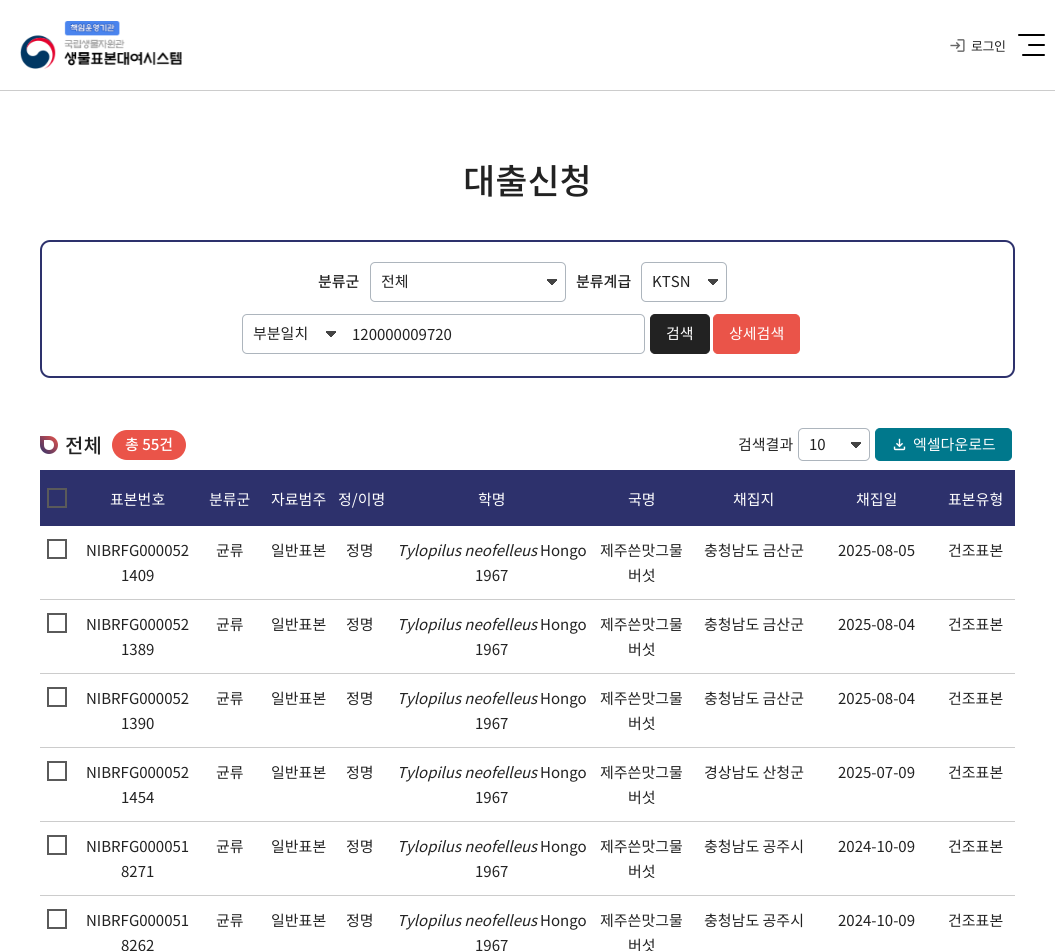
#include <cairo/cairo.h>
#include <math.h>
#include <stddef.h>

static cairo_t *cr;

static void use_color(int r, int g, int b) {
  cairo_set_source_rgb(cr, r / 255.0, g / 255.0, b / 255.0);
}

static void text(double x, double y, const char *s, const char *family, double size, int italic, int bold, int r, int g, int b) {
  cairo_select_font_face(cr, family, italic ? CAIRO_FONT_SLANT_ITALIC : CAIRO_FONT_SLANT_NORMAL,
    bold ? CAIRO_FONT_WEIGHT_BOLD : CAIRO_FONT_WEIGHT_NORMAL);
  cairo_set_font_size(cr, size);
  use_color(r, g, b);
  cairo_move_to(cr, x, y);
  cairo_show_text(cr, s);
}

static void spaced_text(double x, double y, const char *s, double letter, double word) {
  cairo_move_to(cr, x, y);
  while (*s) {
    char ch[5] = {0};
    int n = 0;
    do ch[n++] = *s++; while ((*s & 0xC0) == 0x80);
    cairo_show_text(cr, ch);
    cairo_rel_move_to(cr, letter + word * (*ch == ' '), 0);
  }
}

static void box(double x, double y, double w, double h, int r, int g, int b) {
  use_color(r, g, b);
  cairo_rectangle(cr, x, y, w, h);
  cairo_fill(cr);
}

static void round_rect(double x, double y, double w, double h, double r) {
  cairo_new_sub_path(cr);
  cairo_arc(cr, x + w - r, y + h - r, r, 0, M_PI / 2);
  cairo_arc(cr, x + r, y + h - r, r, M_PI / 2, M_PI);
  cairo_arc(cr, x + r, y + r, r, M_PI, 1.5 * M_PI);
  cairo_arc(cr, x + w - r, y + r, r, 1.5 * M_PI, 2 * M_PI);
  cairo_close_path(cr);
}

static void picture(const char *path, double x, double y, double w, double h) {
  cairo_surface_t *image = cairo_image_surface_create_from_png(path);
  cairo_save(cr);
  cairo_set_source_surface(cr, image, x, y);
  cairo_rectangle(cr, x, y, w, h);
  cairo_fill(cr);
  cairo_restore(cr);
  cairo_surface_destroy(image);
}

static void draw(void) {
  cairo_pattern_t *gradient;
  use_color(255, 255, 255);
  cairo_paint(cr);
  box(0, 90, 1055, 1, 204, 204, 204);
  picture("img_01.png", 20, 21, 162, 48);
  picture("img_02.png", 950, 39, 15, 13);
  use_color(0, 0, 0);
  round_rect(1018, 34, 27, 2, 1);
  cairo_fill(cr);
  round_rect(1028, 44, 17, 2, 1);
  cairo_fill(cr);
  round_rect(1022, 54, 23, 2, 1);
  cairo_fill(cr);
  round_rect(41, 241, 973, 136, 9);
  use_color(45, 49, 108);
  cairo_stroke(cr);
  picture("img_03.png", 547, 279, 10, 6);
  round_rect(370.5, 262.5, 195, 39, 4.5);
  use_color(173, 181, 189);
  cairo_set_line_width(cr, 1);
  cairo_stroke(cr);
  picture("img_03.png", 708, 279, 10, 6);
  round_rect(641.5, 262.5, 85, 39, 4.5);
  cairo_stroke(cr);
  round_rect(242.5, 314.5, 402, 39, 4.5);
  cairo_stroke(cr);
  picture("img_03.png", 326, 331, 10, 6);
  use_color(34, 34, 34);
  round_rect(650.5, 314.5, 59, 39, 4.5);
  cairo_fill_preserve(cr);
  cairo_stroke(cr);
  use_color(234, 84, 73);
  round_rect(713.5, 314.5, 86, 39, 4.5);
  cairo_fill_preserve(cr);
  cairo_stroke(cr);
  gradient = cairo_pattern_create_linear(40, 454, 58, 436);
  cairo_pattern_add_color_stop_rgba(gradient, 0, 0.176, 0.192, 0.424, 1);
  cairo_pattern_add_color_stop_rgba(gradient, 1, 0.918, 0.329, 0.286, 1);
  cairo_set_source(cr, gradient);
  cairo_pattern_destroy(gradient);
  cairo_new_path(cr);
  cairo_move_to(cr, 40, 436);
  cairo_line_to(cr, 49, 436);
  cairo_curve_to(cr, 54, 436, 58, 440, 58, 445);
  cairo_curve_to(cr, 58, 450, 54, 454, 49, 454);
  cairo_curve_to(cr, 44, 454, 40, 450, 40, 445);
  cairo_close_path(cr);
  cairo_fill(cr);
  use_color(255, 255, 255);
  cairo_new_path(cr);
  cairo_move_to(cr, 44, 440);
  cairo_line_to(cr, 49, 440);
  cairo_curve_to(cr, 52, 440, 54, 442, 54, 445);
  cairo_curve_to(cr, 54, 448, 52, 450, 49, 450);
  cairo_curve_to(cr, 46, 450, 44, 448, 44, 445);
  cairo_close_path(cr);
  cairo_fill(cr);
  use_color(234, 84, 73);
  round_rect(112, 430, 74, 30, 15);
  cairo_fill(cr);
  picture("img_03.png", 851, 442, 10, 6);
  round_rect(798.5, 428.5, 71, 32, 4.5);
  use_color(173, 181, 189);
  cairo_stroke(cr);
  use_color(0, 120, 140);
  round_rect(875.5, 428.5, 136, 32, 4.5);
  cairo_fill_preserve(cr);
  cairo_stroke(cr);
  picture("img_04.png", 893, 438, 13, 13);
  box(40, 470, 975, 56, 45, 49, 108);
  cairo_rectangle(cr, 48, 489, 18, 18);
  use_color(90, 90, 90);
  cairo_set_line_width(cr, 2);
  cairo_stroke(cr);
  box(40, 599, 975, 1, 204, 204, 204);
  cairo_rectangle(cr, 48, 540, 18, 18);
  use_color(90, 90, 90);
  cairo_stroke(cr);
  box(40, 673, 975, 1, 204, 204, 204);
  cairo_rectangle(cr, 48, 614, 18, 18);
  use_color(90, 90, 90);
  cairo_stroke(cr);
  box(40, 747, 975, 1, 204, 204, 204);
  cairo_rectangle(cr, 48, 688, 18, 18);
  use_color(90, 90, 90);
  cairo_stroke(cr);
  box(40, 821, 975, 1, 204, 204, 204);
  cairo_rectangle(cr, 48, 762, 18, 18);
  use_color(90, 90, 90);
  cairo_stroke(cr);
  box(40, 895, 975, 1, 204, 204, 204);
  cairo_rectangle(cr, 48, 836, 18, 18);
  use_color(90, 90, 90);
  cairo_stroke(cr);
  cairo_rectangle(cr, 48, 910, 18, 18);
  cairo_stroke(cr);
  cairo_select_font_face(cr, "Noto Sans KR", CAIRO_FONT_SLANT_NORMAL, CAIRO_FONT_WEIGHT_NORMAL);
  cairo_set_font_size(cr, 13);
  use_color(34, 34, 34);
  spaced_text(971, 51, "로그인", -0.5, 0);
  text(463, 194, "대출신청", "Noto Sans KR Medium", 35, 0, 0, 34, 34, 34);
  text(318, 287, "분류군", "Noto Sans KR Medium", 15, 0, 0, 34, 34, 34);
  text(381, 287, "전체", "Noto Sans KR", 15, 0, 0, 34, 34, 34);
  text(576, 287, "분류계급", "Noto Sans KR Medium", 15, 0, 0, 34, 34, 34);
  text(652, 287, "KTSN", "Noto Sans KR", 15, 0, 0, 34, 34, 34);
  text(253, 339, "부분일치", "Noto Sans KR", 15, 0, 0, 34, 34, 34);
  text(352, 340, "120000009720", "Noto Sans KR", 15, 0, 0, 34, 34, 34);
  text(666, 339, "검색", "Noto Sans KR", 15, 0, 0, 255, 255, 255);
  text(729, 339, "상세검색", "Noto Sans KR", 15, 0, 0, 255, 255, 255);
  text(65, 453, "전체", "Noto Sans KR Medium", 20, 0, 0, 34, 34, 34);
  text(125, 450, "총 55건", "Noto Sans KR Medium", 15, 0, 0, 255, 255, 255);
  text(738, 450, "검색결과", "Noto Sans KR", 15, 0, 0, 34, 34, 34);
  text(809, 450, "10", "Noto Sans KR", 15, 0, 0, 34, 34, 34);
  text(913, 450, "엑셀다운로드", "Noto Sans KR", 15, 0, 0, 255, 255, 255);
  text(110, 505, "표본번호", "Noto Sans KR", 15, 0, 0, 255, 255, 255);
  text(209, 505, "분류군", "Noto Sans KR", 15, 0, 0, 255, 255, 255);
  text(271, 505, "자료범주", "Noto Sans KR", 15, 0, 0, 255, 255, 255);
  text(338, 505, "정/이명", "Noto Sans KR", 15, 0, 0, 255, 255, 255);
  text(478, 505, "학명", "Noto Sans KR", 15, 0, 0, 255, 255, 255);
  text(628, 505, "국명", "Noto Sans KR", 15, 0, 0, 255, 255, 255);
  text(733, 505, "채집지", "Noto Sans KR", 15, 0, 0, 255, 255, 255);
  text(856, 505, "채집일", "Noto Sans KR", 15, 0, 0, 255, 255, 255);
  text(948, 505, "표본유형", "Noto Sans KR", 15, 0, 0, 255, 255, 255);
  text(86, 556, "NIBRFG000052", "Noto Sans KR", 15, 0, 0, 34, 34, 34);
  text(121, 581, "1409", "Noto Sans KR", 15, 0, 0, 34, 34, 34);
  text(216, 556, "균류", "Noto Sans KR", 15, 0, 0, 34, 34, 34);
  text(271, 556, "일반표본", "Noto Sans KR", 15, 0, 0, 34, 34, 34);
  text(346, 556, "정명", "Noto Sans KR", 15, 0, 0, 34, 34, 34);
  text(397, 556, "Tylopilus neofelleus", "Noto Sans KR", 15, 1, 0, 34, 34, 34);
  text(540, 556, "Hongo", "Noto Sans KR", 15, 0, 0, 34, 34, 34);
  text(475, 581, "1967", "Noto Sans KR", 15, 0, 0, 34, 34, 34);
  text(600, 556, "제주쓴맛그물", "Noto Sans KR", 15, 0, 0, 34, 34, 34);
  text(628, 581, "버섯", "Noto Sans KR", 15, 0, 0, 34, 34, 34);
  text(704, 556, "충청남도 금산군", "Noto Sans KR", 15, 0, 0, 34, 34, 34);
  text(838, 556, "2025-08-05", "Noto Sans KR", 15, 0, 0, 34, 34, 34);
  text(948, 556, "건조표본", "Noto Sans KR", 15, 0, 0, 34, 34, 34);
  text(86, 630, "NIBRFG000052", "Noto Sans KR", 15, 0, 0, 34, 34, 34);
  text(121, 655, "1389", "Noto Sans KR", 15, 0, 0, 34, 34, 34);
  text(216, 630, "균류", "Noto Sans KR", 15, 0, 0, 34, 34, 34);
  text(271, 630, "일반표본", "Noto Sans KR", 15, 0, 0, 34, 34, 34);
  text(346, 630, "정명", "Noto Sans KR", 15, 0, 0, 34, 34, 34);
  text(397, 630, "Tylopilus neofelleus", "Noto Sans KR", 15, 1, 0, 34, 34, 34);
  text(540, 630, "Hongo", "Noto Sans KR", 15, 0, 0, 34, 34, 34);
  text(475, 655, "1967", "Noto Sans KR", 15, 0, 0, 34, 34, 34);
  text(600, 630, "제주쓴맛그물", "Noto Sans KR", 15, 0, 0, 34, 34, 34);
  text(628, 655, "버섯", "Noto Sans KR", 15, 0, 0, 34, 34, 34);
  text(704, 630, "충청남도 금산군", "Noto Sans KR", 15, 0, 0, 34, 34, 34);
  text(838, 630, "2025-08-04", "Noto Sans KR", 15, 0, 0, 34, 34, 34);
  text(948, 630, "건조표본", "Noto Sans KR", 15, 0, 0, 34, 34, 34);
  text(86, 704, "NIBRFG000052", "Noto Sans KR", 15, 0, 0, 34, 34, 34);
  text(121, 729, "1390", "Noto Sans KR", 15, 0, 0, 34, 34, 34);
  text(216, 704, "균류", "Noto Sans KR", 15, 0, 0, 34, 34, 34);
  text(271, 704, "일반표본", "Noto Sans KR", 15, 0, 0, 34, 34, 34);
  text(346, 704, "정명", "Noto Sans KR", 15, 0, 0, 34, 34, 34);
  text(397, 704, "Tylopilus neofelleus", "Noto Sans KR", 15, 1, 0, 34, 34, 34);
  text(540, 704, "Hongo", "Noto Sans KR", 15, 0, 0, 34, 34, 34);
  text(475, 729, "1967", "Noto Sans KR", 15, 0, 0, 34, 34, 34);
  text(600, 704, "제주쓴맛그물", "Noto Sans KR", 15, 0, 0, 34, 34, 34);
  text(628, 729, "버섯", "Noto Sans KR", 15, 0, 0, 34, 34, 34);
  text(704, 704, "충청남도 금산군", "Noto Sans KR", 15, 0, 0, 34, 34, 34);
  text(838, 704, "2025-08-04", "Noto Sans KR", 15, 0, 0, 34, 34, 34);
  text(948, 704, "건조표본", "Noto Sans KR", 15, 0, 0, 34, 34, 34);
  text(86, 778, "NIBRFG000052", "Noto Sans KR", 15, 0, 0, 34, 34, 34);
  text(121, 803, "1454", "Noto Sans KR", 15, 0, 0, 34, 34, 34);
  text(216, 778, "균류", "Noto Sans KR", 15, 0, 0, 34, 34, 34);
  text(271, 778, "일반표본", "Noto Sans KR", 15, 0, 0, 34, 34, 34);
  text(346, 778, "정명", "Noto Sans KR", 15, 0, 0, 34, 34, 34);
  text(397, 778, "Tylopilus neofelleus", "Noto Sans KR", 15, 1, 0, 34, 34, 34);
  text(540, 778, "Hongo", "Noto Sans KR", 15, 0, 0, 34, 34, 34);
  text(475, 803, "1967", "Noto Sans KR", 15, 0, 0, 34, 34, 34);
  text(600, 778, "제주쓴맛그물", "Noto Sans KR", 15, 0, 0, 34, 34, 34);
  text(628, 803, "버섯", "Noto Sans KR", 15, 0, 0, 34, 34, 34);
  text(704, 778, "경상남도 산청군", "Noto Sans KR", 15, 0, 0, 34, 34, 34);
  text(838, 778, "2025-07-09", "Noto Sans KR", 15, 0, 0, 34, 34, 34);
  text(948, 778, "건조표본", "Noto Sans KR", 15, 0, 0, 34, 34, 34);
  text(86, 852, "NIBRFG000051", "Noto Sans KR", 15, 0, 0, 34, 34, 34);
  text(121, 877, "8271", "Noto Sans KR", 15, 0, 0, 34, 34, 34);
  text(216, 852, "균류", "Noto Sans KR", 15, 0, 0, 34, 34, 34);
  text(271, 852, "일반표본", "Noto Sans KR", 15, 0, 0, 34, 34, 34);
  text(346, 852, "정명", "Noto Sans KR", 15, 0, 0, 34, 34, 34);
  text(397, 852, "Tylopilus neofelleus", "Noto Sans KR", 15, 1, 0, 34, 34, 34);
  text(540, 852, "Hongo", "Noto Sans KR", 15, 0, 0, 34, 34, 34);
  text(475, 877, "1967", "Noto Sans KR", 15, 0, 0, 34, 34, 34);
  text(600, 852, "제주쓴맛그물", "Noto Sans KR", 15, 0, 0, 34, 34, 34);
  text(628, 877, "버섯", "Noto Sans KR", 15, 0, 0, 34, 34, 34);
  text(704, 852, "충청남도 공주시", "Noto Sans KR", 15, 0, 0, 34, 34, 34);
  text(838, 852, "2024-10-09", "Noto Sans KR", 15, 0, 0, 34, 34, 34);
  text(948, 852, "건조표본", "Noto Sans KR", 15, 0, 0, 34, 34, 34);
  text(86, 926, "NIBRFG000051", "Noto Sans KR", 15, 0, 0, 34, 34, 34);
  text(121, 951, "8262", "Noto Sans KR", 15, 0, 0, 34, 34, 34);
  text(216, 926, "균류", "Noto Sans KR", 15, 0, 0, 34, 34, 34);
  text(271, 926, "일반표본", "Noto Sans KR", 15, 0, 0, 34, 34, 34);
  text(346, 926, "정명", "Noto Sans KR", 15, 0, 0, 34, 34, 34);
  text(397, 926, "Tylopilus neofelleus", "Noto Sans KR", 15, 1, 0, 34, 34, 34);
  text(540, 926, "Hongo", "Noto Sans KR", 15, 0, 0, 34, 34, 34);
  text(475, 951, "1967", "Noto Sans KR", 15, 0, 0, 34, 34, 34);
  text(600, 926, "제주쓴맛그물", "Noto Sans KR", 15, 0, 0, 34, 34, 34);
  text(628, 951, "버섯", "Noto Sans KR", 15, 0, 0, 34, 34, 34);
  text(704, 926, "충청남도 공주시", "Noto Sans KR", 15, 0, 0, 34, 34, 34);
  text(838, 926, "2024-10-09", "Noto Sans KR", 15, 0, 0, 34, 34, 34);
  text(948, 926, "건조표본", "Noto Sans KR", 15, 0, 0, 34, 34, 34);
}

int main(void) {
  cairo_surface_t *surface = cairo_image_surface_create(CAIRO_FORMAT_RGB24, 1055, 951);
  cr = cairo_create(surface);
  cairo_font_options_t *options = cairo_font_options_create();
  cairo_font_options_set_hint_metrics(options, CAIRO_HINT_METRICS_OFF);
  cairo_font_options_set_hint_style(options, CAIRO_HINT_STYLE_NONE);
  cairo_set_font_options(cr, options);
  cairo_set_miter_limit(cr, 4);
  draw();
  cairo_surface_write_to_png(surface, "out.png");
  cairo_font_options_destroy(options);
  cairo_destroy(cr);
  cairo_surface_destroy(surface);
  return 0;
}
